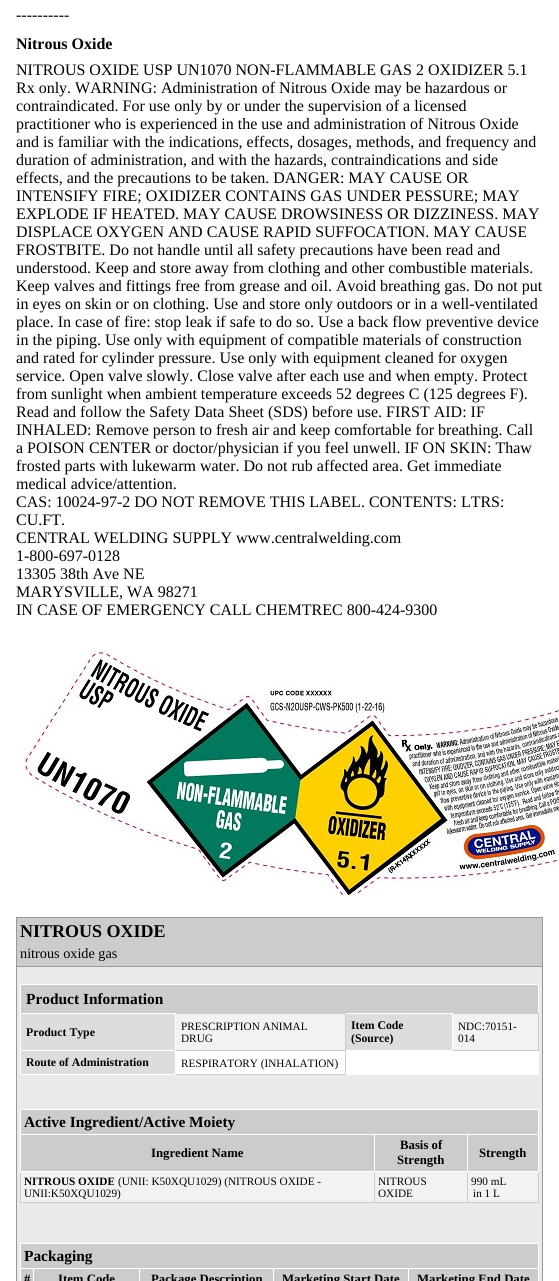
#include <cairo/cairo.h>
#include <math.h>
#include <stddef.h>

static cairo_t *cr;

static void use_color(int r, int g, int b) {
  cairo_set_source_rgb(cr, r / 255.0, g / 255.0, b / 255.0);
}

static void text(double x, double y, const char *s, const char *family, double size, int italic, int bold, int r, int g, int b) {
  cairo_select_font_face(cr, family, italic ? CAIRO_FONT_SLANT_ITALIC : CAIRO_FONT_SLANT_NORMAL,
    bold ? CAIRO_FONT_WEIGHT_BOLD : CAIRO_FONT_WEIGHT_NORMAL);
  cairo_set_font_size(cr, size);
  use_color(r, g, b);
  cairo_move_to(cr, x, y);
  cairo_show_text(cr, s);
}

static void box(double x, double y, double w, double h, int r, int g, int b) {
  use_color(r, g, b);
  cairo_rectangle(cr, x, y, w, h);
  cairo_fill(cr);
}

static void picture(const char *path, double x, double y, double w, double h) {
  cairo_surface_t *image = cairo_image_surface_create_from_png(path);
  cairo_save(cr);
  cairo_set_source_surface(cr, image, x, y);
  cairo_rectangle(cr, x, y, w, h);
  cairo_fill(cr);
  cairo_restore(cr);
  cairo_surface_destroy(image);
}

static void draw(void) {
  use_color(255, 255, 255);
  cairo_paint(cr);
  picture("img_01.png", 16, 650, 543, 245);
  box(17, 967, 525, 314, 234, 234, 234);
  box(16, 917, 527, 1, 153, 153, 153);
  box(542, 917, 1, 364, 153, 153, 153);
  box(16, 917, 1, 364, 153, 153, 153);
  box(17, 918, 525, 48, 204, 204, 204);
  box(16, 966, 527, 1, 153, 153, 153);
  box(20, 984, 519, 1, 255, 255, 255);
  box(538, 984, 1, 91, 255, 255, 255);
  box(20, 1074, 519, 1, 255, 255, 255);
  box(20, 984, 1, 91, 255, 255, 255);
  box(21, 985, 517, 28, 204, 204, 204);
  box(176, 1014, 362, 36, 242, 242, 242);
  box(21, 1014, 154, 36, 221, 221, 221);
  box(452, 1013, 87, 1, 204, 204, 204);
  box(345, 1013, 108, 1, 255, 255, 255);
  box(175, 1013, 171, 1, 204, 204, 204);
  box(20, 1013, 156, 1, 255, 255, 255);
  box(538, 1013, 1, 38, 204, 204, 204);
  box(452, 1050, 87, 1, 204, 204, 204);
  box(452, 1013, 1, 38, 255, 255, 255);
  box(176, 1051, 362, 23, 255, 255, 255);
  box(345, 1050, 1, 25, 204, 204, 204);
  box(345, 1050, 108, 1, 255, 255, 255);
  box(345, 1013, 1, 38, 204, 204, 204);
  box(20, 1050, 156, 1, 255, 255, 255);
  box(175, 1074, 171, 1, 204, 204, 204);
  box(175, 1050, 1, 25, 255, 255, 255);
  box(175, 1050, 171, 1, 204, 204, 204);
  box(175, 1013, 1, 38, 255, 255, 255);
  box(346, 1014, 106, 36, 221, 221, 221);
  box(21, 1051, 154, 23, 221, 221, 221);
  box(20, 1109, 519, 1, 255, 255, 255);
  box(538, 1109, 1, 25, 255, 255, 255);
  box(20, 1109, 1, 62, 255, 255, 255);
  box(21, 1110, 517, 24, 204, 204, 204);
  box(21, 1135, 353, 36, 204, 204, 204);
  box(467, 1134, 72, 1, 255, 255, 255);
  box(538, 1171, 1, 32, 204, 204, 204);
  box(538, 1134, 1, 38, 255, 255, 255);
  box(21, 1172, 517, 30, 242, 242, 242);
  box(467, 1202, 72, 1, 204, 204, 204);
  box(467, 1171, 1, 32, 204, 204, 204);
  box(467, 1171, 72, 1, 255, 255, 255);
  box(467, 1134, 1, 38, 255, 255, 255);
  box(374, 1134, 94, 1, 255, 255, 255);
  box(374, 1202, 94, 1, 204, 204, 204);
  box(374, 1171, 1, 32, 204, 204, 204);
  box(374, 1171, 94, 1, 255, 255, 255);
  box(374, 1134, 1, 38, 255, 255, 255);
  box(20, 1134, 355, 1, 255, 255, 255);
  box(20, 1202, 355, 1, 204, 204, 204);
  box(20, 1171, 1, 32, 204, 204, 204);
  box(20, 1171, 355, 1, 255, 255, 255);
  box(375, 1135, 92, 36, 204, 204, 204);
  box(468, 1135, 70, 36, 204, 204, 204);
  box(20, 1243, 519, 1, 255, 255, 255);
  box(538, 1243, 1, 38, 255, 255, 255);
  box(20, 1243, 1, 38, 255, 255, 255);
  box(21, 1244, 517, 24, 204, 204, 204);
  box(21, 1269, 12, 12, 204, 204, 204);
  box(408, 1268, 131, 1, 255, 255, 255);
  box(408, 1268, 1, 13, 255, 255, 255);
  box(273, 1268, 136, 1, 255, 255, 255);
  box(273, 1268, 1, 13, 255, 255, 255);
  box(139, 1268, 135, 1, 255, 255, 255);
  box(139, 1268, 1, 13, 255, 255, 255);
  box(33, 1268, 107, 1, 255, 255, 255);
  box(33, 1268, 1, 13, 255, 255, 255);
  box(20, 1268, 14, 1, 255, 255, 255);
  box(34, 1269, 105, 12, 204, 204, 204);
  box(140, 1269, 133, 12, 204, 204, 204);
  box(274, 1269, 134, 12, 204, 204, 204);
  box(409, 1269, 129, 12, 204, 204, 204);
  text(16, 20, "----------", "Liberation Serif", 16, 0, 0, 0, 0, 0);
  text(16, 49, "Nitrous Oxide", "Liberation Serif", 16, 0, 1, 0, 0, 0);
  text(16, 75, "NITROUS OXIDE USP UN1070 NON-FLAMMABLE GAS 2 OXIDIZER 5.1", "Liberation Serif", 16, 0, 0, 0, 0, 0);
  text(16, 93, "Rx only. WARNING: Administration of Nitrous Oxide may be hazardous or", "Liberation Serif", 16, 0, 0, 0, 0, 0);
  text(16, 111, "contraindicated. For use only by or under the supervision of a licensed", "Liberation Serif", 16, 0, 0, 0, 0, 0);
  text(16, 129, "practitioner who is experienced in the use and administration of Nitrous Oxide", "Liberation Serif", 16, 0, 0, 0, 0, 0);
  text(16, 147, "and is familiar with the indications, effects, dosages, methods, and frequency and", "Liberation Serif", 16, 0, 0, 0, 0, 0);
  text(16, 165, "duration of administration, and with the hazards, contraindications and side", "Liberation Serif", 16, 0, 0, 0, 0, 0);
  text(16, 183, "effects, and the precautions to be taken. DANGER: MAY CAUSE OR", "Liberation Serif", 16, 0, 0, 0, 0, 0);
  text(16, 201, "INTENSIFY FIRE; OXIDIZER CONTAINS GAS UNDER PESSURE; MAY", "Liberation Serif", 16, 0, 0, 0, 0, 0);
  text(16, 219, "EXPLODE IF HEATED. MAY CAUSE DROWSINESS OR DIZZINESS. MAY", "Liberation Serif", 16, 0, 0, 0, 0, 0);
  text(16, 237, "DISPLACE OXYGEN AND CAUSE RAPID SUFFOCATION. MAY CAUSE", "Liberation Serif", 16, 0, 0, 0, 0, 0);
  text(16, 255, "FROSTBITE. Do not handle until all safety precautions have been read and", "Liberation Serif", 16, 0, 0, 0, 0, 0);
  text(16, 273, "understood. Keep and store away from clothing and other combustible materials.", "Liberation Serif", 16, 0, 0, 0, 0, 0);
  text(16, 291, "Keep valves and fittings free from grease and oil. Avoid breathing gas. Do not put", "Liberation Serif", 16, 0, 0, 0, 0, 0);
  text(16, 309, "in eyes on skin or on clothing. Use and store only outdoors or in a well-ventilated", "Liberation Serif", 16, 0, 0, 0, 0, 0);
  text(16, 327, "place. In case of fire: stop leak if safe to do so. Use a back flow preventive device", "Liberation Serif", 16, 0, 0, 0, 0, 0);
  text(16, 345, "in the piping. Use only with equipment of compatible materials of construction", "Liberation Serif", 16, 0, 0, 0, 0, 0);
  text(16, 363, "and rated for cylinder pressure. Use only with equipment cleaned for oxygen", "Liberation Serif", 16, 0, 0, 0, 0, 0);
  text(16, 381, "service. Open valve slowly. Close valve after each use and when empty. Protect", "Liberation Serif", 16, 0, 0, 0, 0, 0);
  text(16, 399, "from sunlight when ambient temperature exceeds 52 degrees C (125 degrees F).", "Liberation Serif", 16, 0, 0, 0, 0, 0);
  text(16, 417, "Read and follow the Safety Data Sheet (SDS) before use. FIRST AID: IF", "Liberation Serif", 16, 0, 0, 0, 0, 0);
  text(16, 435, "INHALED: Remove person to fresh air and keep comfortable for breathing. Call", "Liberation Serif", 16, 0, 0, 0, 0, 0);
  text(16, 453, "a POISON CENTER or doctor/physician if you feel unwell. IF ON SKIN: Thaw", "Liberation Serif", 16, 0, 0, 0, 0, 0);
  text(16, 471, "frosted parts with lukewarm water. Do not rub affected area. Get immediate", "Liberation Serif", 16, 0, 0, 0, 0, 0);
  text(16, 489, "medical advice/attention.", "Liberation Serif", 16, 0, 0, 0, 0, 0);
  text(16, 507, "CAS: 10024-97-2 DO NOT REMOVE THIS LABEL. CONTENTS: LTRS:", "Liberation Serif", 16, 0, 0, 0, 0, 0);
  text(16, 525, "CU.FT.", "Liberation Serif", 16, 0, 0, 0, 0, 0);
  text(16, 543, "CENTRAL WELDING SUPPLY www.centralwelding.com", "Liberation Serif", 16, 0, 0, 0, 0, 0);
  text(16, 561, "1-800-697-0128", "Liberation Serif", 16, 0, 0, 0, 0, 0);
  text(16, 579, "13305 38th Ave NE", "Liberation Serif", 16, 0, 0, 0, 0, 0);
  text(16, 597, "MARYSVILLE, WA 98271", "Liberation Serif", 16, 0, 0, 0, 0, 0);
  text(16, 615, "IN CASE OF EMERGENCY CALL CHEMTREC 800-424-9300", "Liberation Serif", 16, 0, 0, 0, 0, 0);
  text(20, 937, "NITROUS OXIDE", "Liberation Serif", 18, 0, 1, 0, 0, 0);
  text(20, 958, "nitrous oxide gas", "Liberation Serif", 14.25, 0, 0, 0, 0, 0);
  text(26, 1004, "Product Information", "Liberation Serif", 15.4, 0, 1, 0, 0, 0);
  text(26, 1036, "Product Type", "Liberation Serif", 11.75, 0, 1, 0, 0, 0);
  text(181, 1030, "PRESCRIPTION ANIMAL", "Liberation Serif", 11.25, 0, 0, 0, 0, 0);
  text(181, 1042, "DRUG", "Liberation Serif", 11.25, 0, 0, 0, 0, 0);
  text(351, 1029, "Item Code", "Liberation Serif", 11.75, 0, 1, 0, 0, 0);
  text(351, 1042, "(Source)", "Liberation Serif", 11.75, 0, 1, 0, 0, 0);
  text(458, 1030, "NDC:70151-", "Liberation Serif", 11.25, 0, 0, 0, 0, 0);
  text(458, 1042, "014", "Liberation Serif", 11.25, 0, 0, 0, 0, 0);
  text(26, 1066, "Route of Administration", "Liberation Serif", 11.75, 0, 1, 0, 0, 0);
  text(181, 1067, "RESPIRATORY (INHALATION)", "Liberation Serif", 11.25, 0, 0, 0, 0, 0);
  text(24, 1127, "Active Ingredient/Active Moiety", "Liberation Serif", 15.4, 0, 1, 0, 0, 0);
  text(151, 1157, "Ingredient Name", "Liberation Serif", 12.75, 0, 1, 0, 0, 0);
  text(400, 1149, "Basis of", "Liberation Serif", 12.75, 0, 1, 0, 0, 0);
  text(397, 1164, "Strength", "Liberation Serif", 12.75, 0, 1, 0, 0, 0);
  text(479, 1157, "Strength", "Liberation Serif", 12.75, 0, 1, 0, 0, 0);
  text(24, 1185, "NITROUS OXIDE", "Liberation Serif", 11.25, 0, 1, 0, 0, 0);
  text(118, 1185, "(UNII: K50XQU1029) (NITROUS OXIDE -", "Liberation Serif", 11.25, 0, 0, 0, 0, 0);
  text(24, 1197, "UNII:K50XQU1029)", "Liberation Serif", 11.25, 0, 0, 0, 0, 0);
  text(378, 1185, "NITROUS", "Liberation Serif", 11.25, 0, 0, 0, 0, 0);
  text(378, 1197, "OXIDE", "Liberation Serif", 11.25, 0, 0, 0, 0, 0);
  text(471, 1185, "990 mL", "Liberation Serif", 11.25, 0, 0, 0, 0, 0);
  text(473, 1197, "in 1 L", "Liberation Serif", 11.25, 0, 0, 0, 0, 0);
  text(24, 1261, "Packaging", "Liberation Serif", 15.4, 0, 1, 0, 0, 0);
  text(24, 1283, "#", "Liberation Serif", 12.75, 0, 1, 0, 0, 0);
  text(58, 1283, "Item Code", "Liberation Serif", 12.75, 0, 1, 0, 0, 0);
  text(151, 1283, "Package Description", "Liberation Serif", 12.75, 0, 1, 0, 0, 0);
  text(282, 1283, "Marketing Start Date", "Liberation Serif", 12.75, 0, 1, 0, 0, 0);
  text(417, 1283, "Marketing End Date", "Liberation Serif", 12.75, 0, 1, 0, 0, 0);
}

int main(void) {
  cairo_surface_t *surface = cairo_image_surface_create(CAIRO_FORMAT_RGB24, 559, 1281);
  cr = cairo_create(surface);
  cairo_font_options_t *options = cairo_font_options_create();
  cairo_font_options_set_hint_metrics(options, CAIRO_HINT_METRICS_OFF);
  cairo_font_options_set_hint_style(options, CAIRO_HINT_STYLE_NONE);
  cairo_set_font_options(cr, options);
  cairo_set_miter_limit(cr, 4);
  draw();
  cairo_surface_write_to_png(surface, "out.png");
  cairo_font_options_destroy(options);
  cairo_destroy(cr);
  cairo_surface_destroy(surface);
  return 0;
}
